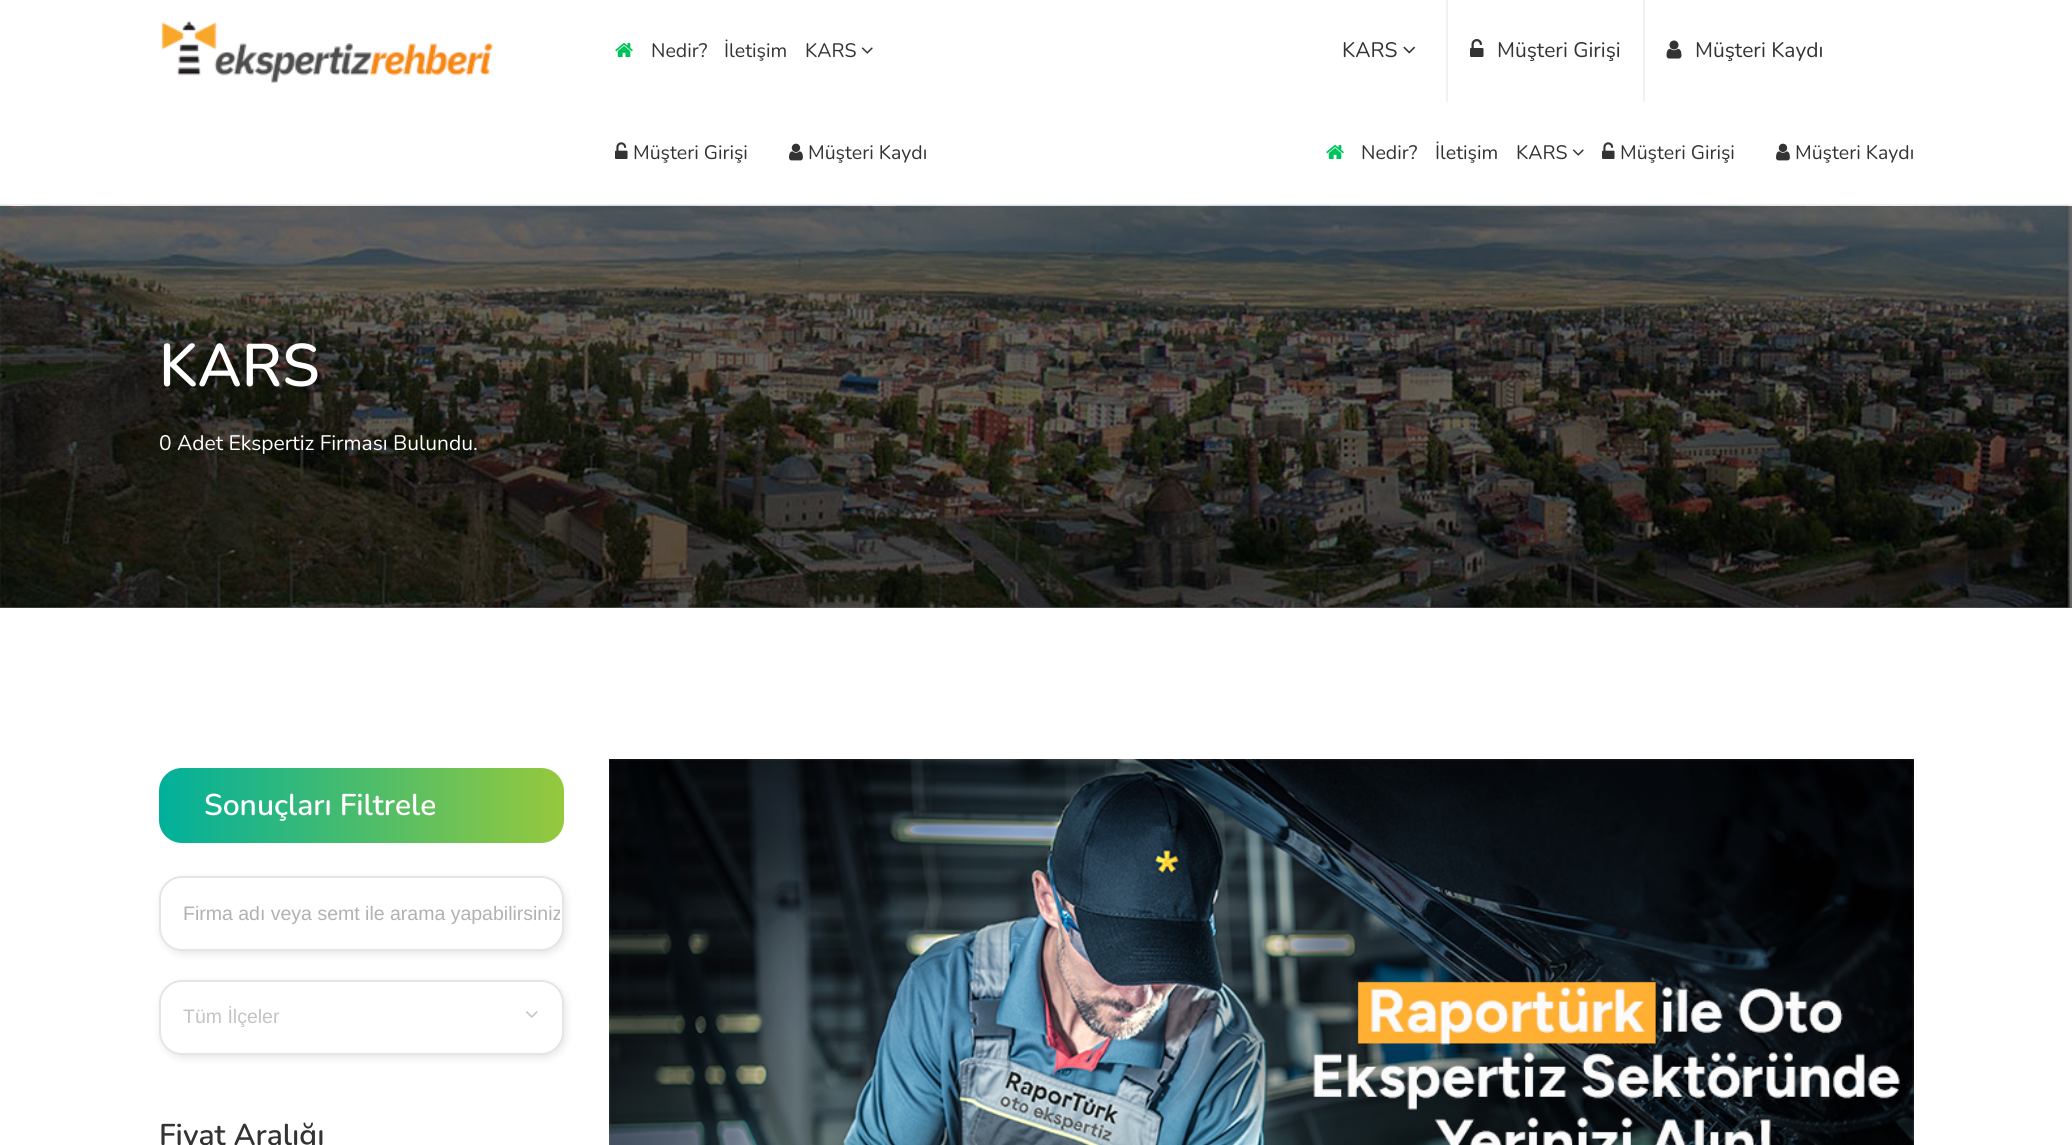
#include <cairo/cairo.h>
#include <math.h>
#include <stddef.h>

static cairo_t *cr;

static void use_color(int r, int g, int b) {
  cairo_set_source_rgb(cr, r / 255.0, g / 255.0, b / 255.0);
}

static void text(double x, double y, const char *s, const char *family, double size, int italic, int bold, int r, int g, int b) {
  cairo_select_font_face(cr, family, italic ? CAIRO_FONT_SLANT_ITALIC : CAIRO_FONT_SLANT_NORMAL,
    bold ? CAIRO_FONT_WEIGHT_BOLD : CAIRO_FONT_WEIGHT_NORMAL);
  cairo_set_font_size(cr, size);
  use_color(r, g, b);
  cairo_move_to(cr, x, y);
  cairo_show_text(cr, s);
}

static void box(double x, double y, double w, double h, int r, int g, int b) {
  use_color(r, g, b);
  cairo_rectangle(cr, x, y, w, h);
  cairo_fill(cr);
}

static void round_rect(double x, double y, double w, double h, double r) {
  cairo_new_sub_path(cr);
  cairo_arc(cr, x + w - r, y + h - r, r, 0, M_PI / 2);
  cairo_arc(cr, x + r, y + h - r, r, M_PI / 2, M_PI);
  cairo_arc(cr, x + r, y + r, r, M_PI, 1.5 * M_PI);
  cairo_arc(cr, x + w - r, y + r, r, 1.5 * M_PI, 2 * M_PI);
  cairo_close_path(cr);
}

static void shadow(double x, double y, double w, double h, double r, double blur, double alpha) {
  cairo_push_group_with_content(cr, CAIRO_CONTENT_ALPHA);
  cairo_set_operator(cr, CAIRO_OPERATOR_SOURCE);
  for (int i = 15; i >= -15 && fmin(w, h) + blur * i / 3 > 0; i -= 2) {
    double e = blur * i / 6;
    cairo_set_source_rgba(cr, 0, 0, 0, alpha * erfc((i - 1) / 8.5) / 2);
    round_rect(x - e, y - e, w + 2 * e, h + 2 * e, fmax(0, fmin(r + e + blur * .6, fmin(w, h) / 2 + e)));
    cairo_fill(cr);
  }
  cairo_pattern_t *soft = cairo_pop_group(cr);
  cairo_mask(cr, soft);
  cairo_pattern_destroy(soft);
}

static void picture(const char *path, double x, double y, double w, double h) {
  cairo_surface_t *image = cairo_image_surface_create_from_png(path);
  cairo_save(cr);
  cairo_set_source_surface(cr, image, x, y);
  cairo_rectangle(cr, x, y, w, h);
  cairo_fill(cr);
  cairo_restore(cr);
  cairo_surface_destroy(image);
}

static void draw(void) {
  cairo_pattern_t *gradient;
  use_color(255, 255, 255);
  cairo_paint(cr);
  box(0, 204, 2072, 2, 241, 241, 241);
  picture("img_01.png", 161, 20, 332, 63);
  picture("img_02.png", 615, 43, 18, 14);
  picture("img_03.png", 861, 47, 12, 7);
  picture("img_04.png", 615, 142, 13, 17);
  picture("img_05.png", 789, 143, 14, 18);
  picture("img_06.png", 1403, 46, 13, 8);
  box(1446, 0, 2, 102, 242, 242, 242);
  picture("img_07.png", 1470, 39, 14, 18);
  box(1643, 0, 2, 102, 242, 242, 242);
  picture("img_08.png", 1666, 40, 16, 19);
  picture("img_02.png", 1326, 145, 18, 14);
  picture("img_03.png", 1572, 149, 12, 7);
  picture("img_04.png", 1602, 142, 13, 17);
  picture("img_05.png", 1776, 143, 14, 18);
  picture("img_09.png", 0, 205, 2072, 403);
  cairo_set_source_rgba(cr, 0, 0, 0, 0.6);
  cairo_rectangle(cr, 0, 206, 2072, 402);
  cairo_fill(cr);
  gradient = cairo_pattern_create_linear(159, 806, 564, 806);
  cairo_pattern_add_color_stop_rgba(gradient, 0, 0, 0.69, 0.608, 1);
  cairo_pattern_add_color_stop_rgba(gradient, 1, 0.588, 0.788, 0.239, 1);
  cairo_set_source(cr, gradient);
  cairo_pattern_destroy(gradient);
  round_rect(159, 768, 405, 75, 23);
  cairo_fill(cr);
  use_color(0, 0, 0);
  shadow(161, 879, 405, 75, 23, 4, 0.1);
  use_color(255, 255, 255);
  round_rect(160, 877, 403, 73, 22);
  cairo_fill_preserve(cr);
  use_color(229, 229, 229);
  cairo_stroke(cr);
  use_color(0, 0, 0);
  shadow(161, 983, 405, 75, 23, 4, 0.1);
  use_color(255, 255, 255);
  round_rect(160, 981, 403, 73, 22);
  cairo_fill_preserve(cr);
  use_color(229, 229, 229);
  cairo_stroke(cr);
  picture("img_10.png", 526, 1011, 12, 7);
  picture("img_11.png", 609, 759, 1305, 386);
  text(651, 57, "Nedir?", "Nunito", 19.5, 0, 0, 51, 51, 51);
  text(724, 57, "İletişim", "Nunito", 19.5, 0, 0, 51, 51, 51);
  text(805, 57, "KARS", "Nunito", 19.5, 0, 0, 51, 51, 51);
  text(633, 159, "Müşteri Girişi", "Nunito", 19.5, 0, 0, 51, 51, 51);
  text(808, 159, "Müşteri Kaydı", "Nunito", 19.5, 0, 0, 51, 51, 51);
  text(1342, 57, "KARS", "Nunito", 21, 0, 0, 51, 51, 51);
  text(1497, 57, "Müşteri Girişi", "Nunito", 21, 0, 0, 51, 51, 51);
  text(1695, 57, "Müşteri Kaydı", "Nunito", 21, 0, 0, 51, 51, 51);
  text(1361, 159, "Nedir?", "Nunito", 19.5, 0, 0, 51, 51, 51);
  text(1435, 159, "İletişim", "Nunito", 19.5, 0, 0, 51, 51, 51);
  text(1516, 159, "KARS", "Nunito", 19.5, 0, 0, 51, 51, 51);
  text(1620, 159, "Müşteri Girişi", "Nunito", 19.5, 0, 0, 51, 51, 51);
  text(1795, 159, "Müşteri Kaydı", "Nunito", 19.5, 0, 0, 51, 51, 51);
  text(159, 386, "KARS", "Nunito SemiBold", 60, 0, 0, 255, 255, 255);
  text(159, 450, "0 Adet Ekspertiz Firması Bulundu.", "Nunito", 21, 0, 0, 255, 255, 255);
  text(204, 815, "Sonuçları Filtrele", "Nunito SemiBold", 30, 0, 0, 255, 255, 255);
  cairo_save(cr);
  cairo_rectangle(cr, 183, 903, 377, 23);
  cairo_clip(cr);
  text(183, 920, "Firma adı veya semt ile arama yapabilirsiniz", "Liberation Sans", 19.5, 0, 0, 177, 177, 177);
  cairo_restore(cr);
  text(183, 1023, "Tüm İlçeler", "Liberation Sans", 19.5, 0, 0, 195, 195, 195);
  text(159, 1145, "Fiyat Aralığı", "Nunito SemiBold", 30, 0, 0, 51, 51, 51);
}

int main(void) {
  cairo_surface_t *surface = cairo_image_surface_create(CAIRO_FORMAT_RGB24, 2072, 1145);
  cr = cairo_create(surface);
  cairo_font_options_t *options = cairo_font_options_create();
  cairo_font_options_set_hint_metrics(options, CAIRO_HINT_METRICS_OFF);
  cairo_font_options_set_hint_style(options, CAIRO_HINT_STYLE_NONE);
  cairo_set_font_options(cr, options);
  cairo_set_miter_limit(cr, 4);
  draw();
  cairo_surface_write_to_png(surface, "out.png");
  cairo_font_options_destroy(options);
  cairo_destroy(cr);
  cairo_surface_destroy(surface);
  return 0;
}
